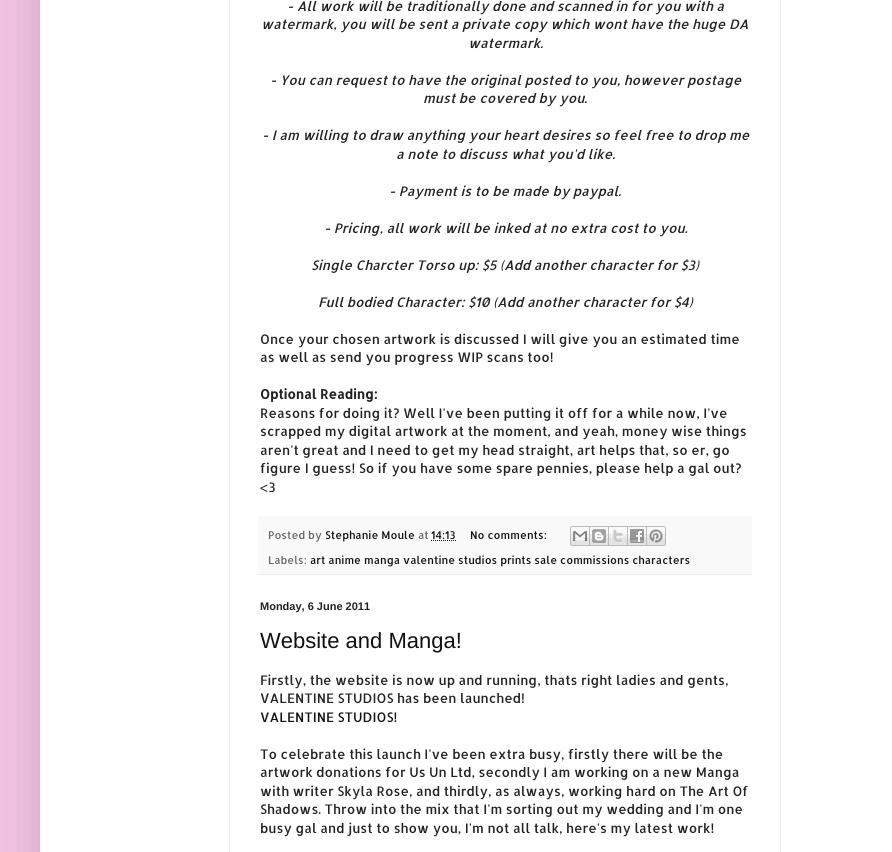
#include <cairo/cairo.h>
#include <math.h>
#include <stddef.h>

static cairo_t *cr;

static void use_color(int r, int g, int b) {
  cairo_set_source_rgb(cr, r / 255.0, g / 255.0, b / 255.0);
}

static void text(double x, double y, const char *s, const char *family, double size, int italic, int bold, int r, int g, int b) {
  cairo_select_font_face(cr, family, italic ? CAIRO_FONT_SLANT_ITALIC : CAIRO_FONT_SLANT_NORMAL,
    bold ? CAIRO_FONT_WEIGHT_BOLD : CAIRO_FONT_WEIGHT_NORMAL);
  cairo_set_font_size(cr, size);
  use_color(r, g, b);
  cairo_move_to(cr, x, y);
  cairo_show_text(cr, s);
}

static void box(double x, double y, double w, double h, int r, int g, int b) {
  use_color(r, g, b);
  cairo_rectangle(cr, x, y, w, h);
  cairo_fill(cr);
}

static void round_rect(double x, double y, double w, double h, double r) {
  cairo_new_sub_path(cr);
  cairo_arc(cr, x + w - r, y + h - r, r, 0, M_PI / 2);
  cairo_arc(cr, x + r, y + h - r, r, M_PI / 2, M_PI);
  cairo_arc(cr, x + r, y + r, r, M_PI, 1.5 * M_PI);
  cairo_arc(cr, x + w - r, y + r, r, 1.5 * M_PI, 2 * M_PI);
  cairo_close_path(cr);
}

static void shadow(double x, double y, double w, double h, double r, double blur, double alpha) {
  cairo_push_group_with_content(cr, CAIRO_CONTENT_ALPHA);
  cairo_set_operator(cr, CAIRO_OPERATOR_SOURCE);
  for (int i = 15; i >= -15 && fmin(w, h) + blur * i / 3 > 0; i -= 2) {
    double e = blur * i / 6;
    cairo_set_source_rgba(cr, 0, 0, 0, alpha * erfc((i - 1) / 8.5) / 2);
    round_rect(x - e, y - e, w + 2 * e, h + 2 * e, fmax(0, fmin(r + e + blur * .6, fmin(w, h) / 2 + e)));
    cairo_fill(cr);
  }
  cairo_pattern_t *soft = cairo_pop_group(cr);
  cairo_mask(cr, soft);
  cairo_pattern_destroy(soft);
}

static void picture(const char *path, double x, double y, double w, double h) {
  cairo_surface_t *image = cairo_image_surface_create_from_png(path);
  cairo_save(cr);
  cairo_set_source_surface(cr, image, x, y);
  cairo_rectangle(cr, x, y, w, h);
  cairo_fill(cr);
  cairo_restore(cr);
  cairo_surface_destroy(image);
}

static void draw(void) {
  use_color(242, 194, 227);
  cairo_paint(cr);
  use_color(0, 0, 0);
  shadow(40, -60, 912, 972, 0, 20, 0.15);
  box(40, 0, 852, 852, 255, 255, 255);
  box(229, 0, 1, 852, 238, 238, 238);
  box(258, 516, 494, 58, 249, 249, 249);
  box(258, 574, 494, 1, 238, 238, 238);
  cairo_new_path(cr);
  cairo_move_to(cr, 431, 540.5);
  cairo_line_to(cr, 456, 540.5);
  use_color(17, 17, 17);
  cairo_set_line_width(cr, 1);
  cairo_set_dash(cr, (double[]){1, 1}, 2, 0);
  cairo_stroke(cr);
  picture("img_01.png", 570, 526, 20, 20);
  picture("img_02.png", 590, 526, 19, 20);
  picture("img_03.png", 609, 526, 19, 20);
  picture("img_04.png", 628, 526, 19, 20);
  picture("img_05.png", 647, 526, 19, 20);
  box(780, 0, 1, 852, 238, 238, 238);
  text(287, 11, "- All work will be traditionally done and scanned in for you with a", "Allerta", 13.2, 1, 0, 34, 34, 34);
  text(261, 29, "watermark, you will be sent a private copy which wont have the huge DA", "Allerta", 13.2, 1, 0, 34, 34, 34);
  text(468, 48, "watermark.", "Allerta", 13.2, 1, 0, 34, 34, 34);
  text(270, 85, "- You can request to have the original posted to you, however postage", "Allerta", 13.2, 1, 0, 34, 34, 34);
  text(423, 103, "must be covered by you.", "Allerta", 13.2, 1, 0, 34, 34, 34);
  text(262, 140, "- I am willing to draw anything your heart desires so feel free to drop me", "Allerta", 13.2, 1, 0, 34, 34, 34);
  text(396, 159, "a note to discuss what you'd like.", "Allerta", 13.2, 1, 0, 34, 34, 34);
  text(389, 196, "- Payment is to be made by paypal.", "Allerta", 13.2, 1, 0, 34, 34, 34);
  text(324, 233, "- Pricing, all work will be inked at no extra cost to you.", "Allerta", 13.2, 1, 0, 34, 34, 34);
  text(311, 270, "Single Charcter Torso up: $5 (Add another character for $3)", "Allerta", 13.2, 1, 0, 34, 34, 34);
  text(318, 307, "Full bodied Character: $10 (Add another character for $4)", "Allerta", 13.2, 1, 0, 34, 34, 34);
  text(260, 344, "Once your chosen artwork is discussed I will give you an estimated time", "Allerta", 13.2, 0, 0, 34, 34, 34);
  text(260, 362, "as well as send you progress WIP scans too!", "Allerta", 13.2, 0, 0, 34, 34, 34);
  text(260, 399, "Optional Reading:", "Allerta", 13.2, 0, 1, 34, 34, 34);
  text(260, 418, "Reasons for doing it? Well I've been putting it off for a while now, I've", "Allerta", 13.2, 0, 0, 34, 34, 34);
  text(260, 436, "scrapped my digital artwork at the moment, and yeah, money wise things", "Allerta", 13.2, 0, 0, 34, 34, 34);
  text(260, 455, "aren't great and I need to get my head straight, art helps that, so er, go", "Allerta", 13.2, 0, 0, 34, 34, 34);
  text(260, 473, "figure I guess! So if you have some spare pennies, please help a gal out?", "Allerta", 13.2, 0, 0, 34, 34, 34);
  text(260, 492, "<3", "Allerta", 13.2, 0, 0, 34, 34, 34);
  text(268, 539, "Posted by", "Allerta", 10.8, 0, 0, 102, 102, 102);
  text(325, 539, "Stephanie Moule", "Allerta", 10.8, 0, 0, 17, 17, 17);
  text(418, 539, "at", "Allerta", 10.8, 0, 0, 102, 102, 102);
  text(431, 539, "14:13", "Allerta", 10.8, 0, 0, 17, 17, 17);
  text(470, 539, "No comments:", "Allerta", 10.8, 0, 0, 17, 17, 17);
  text(268, 564, "Labels:", "Allerta", 10.8, 0, 0, 102, 102, 102);
  text(310, 564, "art anime manga valentine studios prints sale commissions characters", "Allerta", 10.8, 0, 0, 17, 17, 17);
  text(260, 610, "Monday, 6 June 2011", "Liberation Sans", 11, 0, 1, 34, 34, 34);
  text(260, 648, "Website and Manga!", "Liberation Sans", 22, 0, 0, 17, 17, 17);
  text(260, 685, "Firstly, the website is now up and running, thats right ladies and gents,", "Allerta", 13.2, 0, 0, 34, 34, 34);
  text(260, 703, "VALENTINE STUDIOS has been launched!", "Allerta", 13.2, 0, 0, 34, 34, 34);
  text(260, 722, "VALENTINE STUDIOS!", "Allerta", 13.2, 0, 0, 17, 17, 17);
  text(260, 759, "To celebrate this launch I've been extra busy, firstly there will be the", "Allerta", 13.2, 0, 0, 34, 34, 34);
  text(260, 777, "artwork donations for Us Un Ltd, secondly I am working on a new Manga", "Allerta", 13.2, 0, 0, 34, 34, 34);
  text(260, 796, "with writer Skyla Rose, and thirdly, as always, working hard on The Art Of", "Allerta", 13.2, 0, 0, 34, 34, 34);
  text(260, 814, "Shadows. Throw into the mix that I'm sorting out my wedding and I'm one", "Allerta", 13.2, 0, 0, 34, 34, 34);
  text(260, 833, "busy gal and just to show you, I'm not all talk, here's my latest work!", "Allerta", 13.2, 0, 0, 34, 34, 34);
}

int main(void) {
  cairo_surface_t *surface = cairo_image_surface_create(CAIRO_FORMAT_RGB24, 892, 852);
  cr = cairo_create(surface);
  cairo_font_options_t *options = cairo_font_options_create();
  cairo_font_options_set_hint_metrics(options, CAIRO_HINT_METRICS_OFF);
  cairo_font_options_set_hint_style(options, CAIRO_HINT_STYLE_NONE);
  cairo_set_font_options(cr, options);
  cairo_set_miter_limit(cr, 4);
  draw();
  cairo_surface_write_to_png(surface, "out.png");
  cairo_font_options_destroy(options);
  cairo_destroy(cr);
  cairo_surface_destroy(surface);
  return 0;
}
